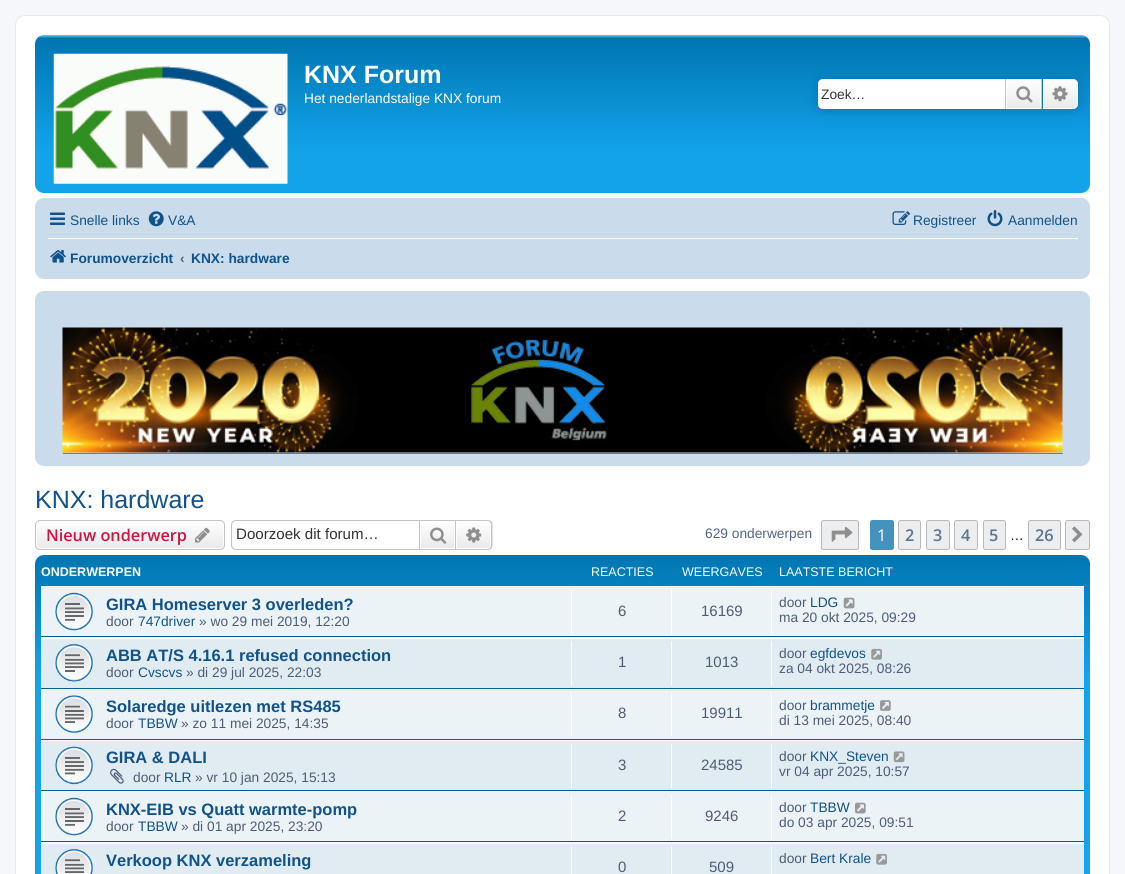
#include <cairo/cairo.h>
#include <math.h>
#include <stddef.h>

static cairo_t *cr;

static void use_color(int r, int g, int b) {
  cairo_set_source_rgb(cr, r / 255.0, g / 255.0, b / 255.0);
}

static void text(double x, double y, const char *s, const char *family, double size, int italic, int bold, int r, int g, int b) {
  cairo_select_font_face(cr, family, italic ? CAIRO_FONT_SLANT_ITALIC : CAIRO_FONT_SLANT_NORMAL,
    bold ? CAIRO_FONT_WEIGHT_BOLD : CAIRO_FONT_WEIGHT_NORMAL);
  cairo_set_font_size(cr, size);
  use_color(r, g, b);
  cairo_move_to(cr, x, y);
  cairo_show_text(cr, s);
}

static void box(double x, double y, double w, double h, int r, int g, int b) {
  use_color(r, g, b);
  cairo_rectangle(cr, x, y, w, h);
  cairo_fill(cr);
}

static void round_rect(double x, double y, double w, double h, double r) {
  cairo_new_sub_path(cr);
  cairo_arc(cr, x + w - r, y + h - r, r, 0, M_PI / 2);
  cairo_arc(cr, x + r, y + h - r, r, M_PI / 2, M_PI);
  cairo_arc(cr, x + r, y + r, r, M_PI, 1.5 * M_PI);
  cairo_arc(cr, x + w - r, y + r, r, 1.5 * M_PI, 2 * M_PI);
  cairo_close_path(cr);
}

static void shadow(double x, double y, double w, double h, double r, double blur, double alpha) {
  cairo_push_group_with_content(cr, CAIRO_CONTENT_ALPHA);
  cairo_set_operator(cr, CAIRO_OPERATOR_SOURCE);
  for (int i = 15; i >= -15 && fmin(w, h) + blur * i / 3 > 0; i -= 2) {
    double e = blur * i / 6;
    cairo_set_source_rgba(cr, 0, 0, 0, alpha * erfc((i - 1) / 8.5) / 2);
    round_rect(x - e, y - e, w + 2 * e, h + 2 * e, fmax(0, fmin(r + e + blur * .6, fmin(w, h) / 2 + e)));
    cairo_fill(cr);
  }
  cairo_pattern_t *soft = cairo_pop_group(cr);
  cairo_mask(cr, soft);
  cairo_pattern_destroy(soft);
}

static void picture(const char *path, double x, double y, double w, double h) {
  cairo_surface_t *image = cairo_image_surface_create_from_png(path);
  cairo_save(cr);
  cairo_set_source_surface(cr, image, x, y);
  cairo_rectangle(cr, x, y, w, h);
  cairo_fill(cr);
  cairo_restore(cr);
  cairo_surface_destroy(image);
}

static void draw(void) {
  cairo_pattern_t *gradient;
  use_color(245, 247, 250);
  cairo_paint(cr);
  use_color(255, 255, 255);
  round_rect(15.5, 15.5, 1094, 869, 9.5);
  cairo_fill_preserve(cr);
  use_color(230, 233, 237);
  cairo_set_line_width(cr, 1);
  cairo_stroke(cr);
  gradient = cairo_pattern_create_linear(563, 35, 563, 193);
  cairo_pattern_add_color_stop_rgba(gradient, 0, 0.416, 0.808, 1, 1);
  cairo_pattern_add_color_stop_rgba(gradient, 0.02, 0, 0.463, 0.694, 1);
  cairo_pattern_add_color_stop_rgba(gradient, 0.73, 0.071, 0.639, 0.922, 1);
  cairo_pattern_add_color_stop_rgba(gradient, 1, 0.071, 0.639, 0.922, 1);
  cairo_set_source(cr, gradient);
  cairo_pattern_destroy(gradient);
  round_rect(35, 35, 1055, 158, 9);
  cairo_fill(cr);
  picture("img_01.png", 53, 53, 235, 131);
  use_color(0, 117, 176);
  shadow(818, 79, 260, 30, 5, 6, 1);
  use_color(255, 255, 255);
  cairo_new_path(cr);
  cairo_move_to(cr, 823, 79);
  cairo_line_to(cr, 1005, 79);
  cairo_line_to(cr, 1005, 109);
  cairo_line_to(cr, 823, 109);
  cairo_curve_to(cr, 820, 109, 818, 107, 818, 104);
  cairo_line_to(cr, 818, 84);
  cairo_curve_to(cr, 818, 81, 820, 79, 823, 79);
  cairo_close_path(cr);
  cairo_fill(cr);
  gradient = cairo_pattern_create_linear(1024, 79, 1024, 109);
  cairo_pattern_add_color_stop_rgba(gradient, 0, 1, 1, 1, 1);
  cairo_pattern_add_color_stop_rgba(gradient, 1, 0.914, 0.914, 0.914, 1);
  cairo_set_source(cr, gradient);
  cairo_pattern_destroy(gradient);
  cairo_rectangle(cr, 1007, 80, 33, 28);
  cairo_fill(cr);
  cairo_rectangle(cr, 1006.5, 79.5, 34, 29);
  use_color(255, 255, 255);
  cairo_stroke(cr);
  box(1041, 79, 1, 30, 199, 195, 191);
  box(1005, 79, 1, 30, 199, 195, 191);
  picture("img_02.png", 1016, 86, 17, 17);
  gradient = cairo_pattern_create_linear(1060, 79, 1060, 109);
  cairo_pattern_add_color_stop_rgba(gradient, 0, 1, 1, 1, 1);
  cairo_pattern_add_color_stop_rgba(gradient, 1, 0.914, 0.914, 0.914, 1);
  cairo_set_source(cr, gradient);
  cairo_pattern_destroy(gradient);
  cairo_new_path(cr);
  cairo_move_to(cr, 1043.5, 79.5);
  cairo_line_to(cr, 1073, 79.5);
  cairo_curve_to(cr, 1075.5, 79.5, 1077.5, 81.5, 1077.5, 84);
  cairo_line_to(cr, 1077.5, 104);
  cairo_curve_to(cr, 1077.5, 106.5, 1075.5, 108.5, 1073, 108.5);
  cairo_line_to(cr, 1043.5, 108.5);
  cairo_close_path(cr);
  cairo_fill_preserve(cr);
  use_color(255, 255, 255);
  cairo_stroke(cr);
  picture("img_03.png", 1052, 86, 16, 16);
  use_color(202, 220, 235);
  round_rect(35, 198, 1055, 81, 9);
  cairo_fill(cr);
  picture("img_04.png", 50, 212, 15, 13);
  picture("img_05.png", 148, 211, 16, 16);
  picture("img_06.png", 892, 211, 18, 14);
  picture("img_07.png", 987, 210, 16, 17);
  box(48, 238, 1030, 1, 255, 255, 255);
  picture("img_08.png", 50, 250, 16, 13);
  use_color(202, 220, 235);
  round_rect(35, 291, 1055, 175, 9);
  cairo_fill(cr);
  box(63, 453, 1000, 1, 54, 138, 210);
  picture("img_09.png", 62, 327, 1001, 126);
  cairo_save(cr);
  round_rect(35, 520, 190, 30, 5);
  cairo_clip(cr);
  gradient = cairo_pattern_create_linear(130, 521, 130, 549);
  cairo_pattern_add_color_stop_rgba(gradient, 0, 1, 1, 1, 1);
  cairo_pattern_add_color_stop_rgba(gradient, 1, 0.914, 0.914, 0.914, 1);
  cairo_set_source(cr, gradient);
  cairo_pattern_destroy(gradient);
  cairo_rectangle(cr, 35, 521, 190, 28);
  cairo_fill(cr);
  cairo_restore(cr);
  round_rect(36.5, 521.5, 187, 27, 3.5);
  use_color(255, 255, 255);
  cairo_stroke(cr);
  round_rect(35.5, 520.5, 189, 29, 4.5);
  use_color(199, 195, 191);
  cairo_stroke(cr);
  picture("img_10.png", 195, 527, 15, 16);
  cairo_set_fill_rule(cr, CAIRO_FILL_RULE_EVEN_ODD);
  cairo_new_path(cr);
  cairo_move_to(cr, 236, 520);
  cairo_line_to(cr, 419, 520);
  cairo_line_to(cr, 419, 550);
  cairo_line_to(cr, 236, 550);
  cairo_curve_to(cr, 233, 550, 231, 548, 231, 545);
  cairo_line_to(cr, 231, 525);
  cairo_curve_to(cr, 231, 522, 233, 520, 236, 520);
  cairo_close_path(cr);
  cairo_move_to(cr, 236, 521);
  cairo_line_to(cr, 419, 521);
  cairo_line_to(cr, 419, 549);
  cairo_line_to(cr, 236, 549);
  cairo_curve_to(cr, 234, 549, 232, 547, 232, 545);
  cairo_line_to(cr, 232, 525);
  cairo_curve_to(cr, 232, 523, 234, 521, 236, 521);
  cairo_close_path(cr);
  cairo_fill(cr);
  gradient = cairo_pattern_create_linear(438, 521, 438, 549);
  cairo_pattern_add_color_stop_rgba(gradient, 0, 1, 1, 1, 1);
  cairo_pattern_add_color_stop_rgba(gradient, 1, 0.914, 0.914, 0.914, 1);
  cairo_set_source(cr, gradient);
  cairo_pattern_destroy(gradient);
  cairo_rectangle(cr, 421, 524, 33, 24);
  cairo_fill(cr);
  cairo_rectangle(cr, 419.5, 520.5, 36, 29);
  use_color(199, 195, 191);
  cairo_stroke(cr);
  picture("img_11.png", 430, 527, 17, 17);
  gradient = cairo_pattern_create_linear(474, 521, 474, 549);
  cairo_pattern_add_color_stop_rgba(gradient, 0, 1, 1, 1, 1);
  cairo_pattern_add_color_stop_rgba(gradient, 1, 0.914, 0.914, 0.914, 1);
  cairo_set_source(cr, gradient);
  cairo_pattern_destroy(gradient);
  cairo_new_path(cr);
  cairo_move_to(cr, 456.5, 521.5);
  cairo_line_to(cr, 487, 521.5);
  cairo_curve_to(cr, 489, 521.5, 490.5, 523, 490.5, 525);
  cairo_line_to(cr, 490.5, 545);
  cairo_curve_to(cr, 490.5, 547, 489, 548.5, 487, 548.5);
  cairo_line_to(cr, 456.5, 548.5);
  cairo_close_path(cr);
  cairo_fill_preserve(cr);
  use_color(255, 255, 255);
  cairo_stroke(cr);
  use_color(199, 195, 191);
  cairo_new_path(cr);
  cairo_move_to(cr, 456, 520);
  cairo_line_to(cr, 487.5, 520);
  cairo_curve_to(cr, 490.5, 520, 492.5, 522, 492.5, 525);
  cairo_line_to(cr, 492.5, 545);
  cairo_curve_to(cr, 492.5, 548, 490.5, 550, 487.5, 550);
  cairo_line_to(cr, 456, 550);
  cairo_close_path(cr);
  cairo_move_to(cr, 456, 521);
  cairo_line_to(cr, 487.5, 521);
  cairo_curve_to(cr, 489.5, 521, 491, 523, 491, 525);
  cairo_line_to(cr, 491, 545);
  cairo_curve_to(cr, 491, 547, 489.5, 549, 487.5, 549);
  cairo_line_to(cr, 456, 549);
  cairo_close_path(cr);
  cairo_fill(cr);
  picture("img_12.png", 466, 527, 16, 16);
  use_color(236, 237, 238);
  round_rect(821.5, 520.5, 37, 29, 2);
  cairo_fill_preserve(cr);
  use_color(180, 186, 192);
  cairo_stroke(cr);
  picture("img_13.png", 831, 526, 22, 16);
  use_color(70, 146, 191);
  round_rect(870.5, 520.5, 23, 29, 2);
  cairo_fill_preserve(cr);
  cairo_stroke(cr);
  use_color(236, 237, 238);
  round_rect(898.5, 520.5, 22, 29, 2);
  cairo_fill_preserve(cr);
  use_color(180, 186, 192);
  cairo_stroke(cr);
  use_color(236, 237, 238);
  round_rect(926.5, 520.5, 23, 29, 2);
  cairo_fill_preserve(cr);
  use_color(180, 186, 192);
  cairo_stroke(cr);
  use_color(236, 237, 238);
  round_rect(954.5, 520.5, 23, 29, 2);
  cairo_fill_preserve(cr);
  use_color(180, 186, 192);
  cairo_stroke(cr);
  use_color(236, 237, 238);
  round_rect(983.5, 520.5, 22, 29, 2);
  cairo_fill_preserve(cr);
  use_color(180, 186, 192);
  cairo_stroke(cr);
  use_color(236, 237, 238);
  round_rect(1028.5, 520.5, 32, 29, 2);
  cairo_fill_preserve(cr);
  use_color(180, 186, 192);
  cairo_stroke(cr);
  use_color(236, 237, 238);
  round_rect(1065.5, 520.5, 24, 29, 2);
  cairo_fill_preserve(cr);
  use_color(180, 186, 192);
  cairo_stroke(cr);
  picture("img_14.png", 1072, 526, 11, 17);
  gradient = cairo_pattern_create_linear(562, 555, 563, 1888);
  cairo_pattern_add_color_stop_rgba(gradient, 0, 0.416, 0.808, 1, 1);
  cairo_pattern_add_color_stop_rgba(gradient, 0, 0, 0.463, 0.694, 1);
  cairo_pattern_add_color_stop_rgba(gradient, 0.09, 0.071, 0.639, 0.922, 1);
  cairo_pattern_add_color_stop_rgba(gradient, 1, 0.071, 0.639, 0.922, 1);
  cairo_set_source(cr, gradient);
  cairo_pattern_destroy(gradient);
  round_rect(35, 555, 1055, 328, 9);
  cairo_fill(cr);
  box(41, 587, 1043, 51, 236, 243, 247);
  box(41, 586, 1043, 1, 255, 255, 255);
  box(41, 636, 1043, 1, 0, 96, 143);
  picture("img_15.png", 55, 592, 38, 39);
  box(571, 590, 1, 44, 255, 255, 255);
  box(671, 590, 1, 44, 255, 255, 255);
  box(771, 590, 1, 44, 255, 255, 255);
  picture("img_16.png", 843, 597, 12, 12);
  box(41, 639, 1043, 49, 225, 235, 242);
  box(41, 638, 1043, 1, 255, 255, 255);
  box(41, 688, 1043, 1, 0, 96, 143);
  picture("img_17.png", 55, 643, 38, 39);
  box(571, 641, 1, 44, 255, 255, 255);
  box(671, 641, 1, 44, 255, 255, 255);
  box(771, 641, 1, 44, 255, 255, 255);
  picture("img_18.png", 871, 648, 11, 12);
  box(41, 690, 1043, 49, 236, 243, 247);
  box(41, 689, 1043, 1, 255, 255, 255);
  box(41, 739, 1043, 1, 0, 96, 143);
  picture("img_19.png", 55, 695, 38, 38);
  box(571, 693, 1, 43, 255, 255, 255);
  box(671, 693, 1, 43, 255, 255, 255);
  box(771, 693, 1, 43, 255, 255, 255);
  picture("img_20.png", 880, 700, 11, 11);
  box(41, 741, 1043, 49, 225, 235, 242);
  box(41, 740, 1043, 1, 255, 255, 255);
  box(41, 790, 1043, 1, 0, 96, 143);
  picture("img_21.png", 55, 746, 38, 39);
  picture("img_22.png", 110, 768, 14, 16);
  box(571, 744, 1, 44, 255, 255, 255);
  box(671, 744, 1, 44, 255, 255, 255);
  box(771, 744, 1, 44, 255, 255, 255);
  picture("img_23.png", 893, 751, 12, 12);
  box(41, 792, 1043, 51, 236, 243, 247);
  box(41, 791, 1043, 1, 255, 255, 255);
  box(41, 841, 1043, 1, 0, 96, 143);
  picture("img_15.png", 55, 797, 38, 39);
  box(571, 795, 1, 44, 255, 255, 255);
  box(671, 795, 1, 44, 255, 255, 255);
  box(771, 795, 1, 44, 255, 255, 255);
  picture("img_24.png", 855, 802, 11, 12);
  box(41, 844, 1043, 30, 225, 235, 242);
  box(41, 843, 1043, 1, 255, 255, 255);
  picture("img_25.png", 55, 848, 38, 26);
  box(571, 846, 1, 28, 255, 255, 255);
  box(671, 846, 1, 28, 255, 255, 255);
  box(771, 846, 1, 28, 255, 255, 255);
  picture("img_18.png", 876, 853, 11, 12);
  text(304, 83, "KNX Forum", "Liberation Sans", 25, 0, 1, 255, 255, 255);
  text(304, 103, "Het nederlandstalige KNX forum", "Liberation Sans", 13.75, 0, 0, 255, 255, 255);
  text(821, 99, "Zoek…", "Liberation Sans", 13.75, 0, 0, 51, 51, 51);
  text(70, 225, "Snelle links", "Liberation Sans", 13.75, 0, 0, 16, 82, 137);
  text(168, 225, "V&A", "Liberation Sans", 13.75, 0, 0, 16, 82, 137);
  text(913, 225, "Registreer", "Liberation Sans", 13.75, 0, 0, 16, 82, 137);
  text(1008, 225, "Aanmelden", "Liberation Sans", 13.75, 0, 0, 16, 82, 137);
  text(70, 263, "Forumoverzicht", "Liberation Sans", 13.75, 0, 1, 16, 82, 137);
  text(180, 263, "‹", "Liberation Sans", 13.75, 0, 1, 83, 100, 130);
  text(191, 263, "KNX: hardware", "Liberation Sans", 13.75, 0, 1, 16, 82, 137);
  text(35, 508, "KNX: hardware", "Liberation Sans", 25, 0, 0, 16, 82, 137);
  text(46, 541, "Nieuw onderwerp", "Open Sans SemiBold", 16.25, 0, 0, 211, 17, 65);
  text(236, 539, "Doorzoek dit forum…", "Liberation Sans", 15.1, 0, 0, 51, 51, 51);
  text(705, 538, "629 onderwerpen", "Liberation Sans", 13.75, 0, 0, 83, 100, 130);
  text(877, 541, "1", "Open Sans", 16.25, 0, 0, 255, 255, 255);
  text(905, 541, "2", "Open Sans SemiBold", 16.25, 0, 0, 92, 117, 140);
  text(933, 541, "3", "Open Sans SemiBold", 16.25, 0, 0, 92, 117, 140);
  text(961, 541, "4", "Open Sans SemiBold", 16.25, 0, 0, 92, 117, 140);
  text(989, 541, "5", "Open Sans SemiBold", 16.25, 0, 0, 92, 117, 140);
  text(1010, 540, "…", "Liberation Sans", 13.75, 0, 0, 0, 0, 0);
  text(1035, 541, "26", "Open Sans SemiBold", 16.25, 0, 0, 92, 117, 140);
  text(41, 576, "ONDERWERPEN", "Liberation Sans", 12.5, 0, 1, 255, 255, 255);
  text(591, 576, "REACTIES", "Liberation Sans", 12.5, 0, 0, 255, 255, 255);
  text(682, 576, "WEERGAVES", "Liberation Sans", 12.5, 0, 0, 255, 255, 255);
  text(779, 576, "LAATSTE BERICHT", "Liberation Sans", 12.5, 0, 0, 255, 255, 255);
  text(106, 610, "GIRA Homeserver 3 overleden?", "Liberation Sans", 16.5, 0, 1, 16, 82, 137);
  text(106, 626, "door", "Liberation Sans", 13.75, 0, 0, 76, 93, 119);
  text(138, 626, "747driver", "Liberation Sans", 13.75, 0, 0, 16, 82, 137);
  text(199, 626, "» wo 29 mei 2019, 12:20", "Liberation Sans", 13.75, 0, 0, 76, 93, 119);
  text(618, 616, "6", "Liberation Sans", 15, 0, 0, 76, 93, 119);
  text(701, 616, "16169", "Liberation Sans", 15, 0, 0, 76, 93, 119);
  text(779, 607, "door", "Liberation Sans", 13.75, 0, 0, 76, 93, 119);
  text(810, 607, "LDG", "Liberation Sans", 13.75, 0, 0, 16, 82, 137);
  text(779, 622, "ma 20 okt 2025, 09:29", "Liberation Sans", 13.75, 0, 0, 76, 93, 119);
  text(106, 661, "ABB AT/S 4.16.1 refused connection", "Liberation Sans", 16.5, 0, 1, 16, 82, 137);
  text(106, 677, "door", "Liberation Sans", 13.75, 0, 0, 76, 93, 119);
  text(138, 677, "Cvscvs", "Liberation Sans", 13.75, 0, 0, 16, 82, 137);
  text(186, 677, "» di 29 jul 2025, 22:03", "Liberation Sans", 13.75, 0, 0, 76, 93, 119);
  text(618, 667, "1", "Liberation Sans", 15, 0, 0, 76, 93, 119);
  text(705, 667, "1013", "Liberation Sans", 15, 0, 0, 76, 93, 119);
  text(779, 658, "door", "Liberation Sans", 13.75, 0, 0, 76, 93, 119);
  text(810, 658, "egfdevos", "Liberation Sans", 13.75, 0, 0, 16, 82, 137);
  text(779, 673, "za 04 okt 2025, 08:26", "Liberation Sans", 13.75, 0, 0, 76, 93, 119);
  text(106, 712, "Solaredge uitlezen met RS485", "Liberation Sans", 16.5, 0, 1, 16, 82, 137);
  text(106, 728, "door", "Liberation Sans", 13.75, 0, 0, 76, 93, 119);
  text(138, 728, "TBBW", "Liberation Sans", 13.75, 0, 0, 16, 82, 137);
  text(181, 728, "» zo 11 mei 2025, 14:35", "Liberation Sans", 13.75, 0, 0, 76, 93, 119);
  text(618, 718, "8", "Liberation Sans", 15, 0, 0, 76, 93, 119);
  text(701, 718, "19911", "Liberation Sans", 15, 0, 0, 76, 93, 119);
  text(779, 710, "door", "Liberation Sans", 13.75, 0, 0, 76, 93, 119);
  text(810, 710, "brammetje", "Liberation Sans", 13.75, 0, 0, 16, 82, 137);
  text(779, 725, "di 13 mei 2025, 08:40", "Liberation Sans", 13.75, 0, 0, 76, 93, 119);
  text(106, 763, "GIRA & DALI", "Liberation Sans", 16.5, 0, 1, 16, 82, 137);
  text(133, 782, "door", "Liberation Sans", 13.75, 0, 0, 76, 93, 119);
  text(164, 782, "RLR", "Liberation Sans", 13.75, 0, 0, 16, 82, 137);
  text(195, 782, "» vr 10 jan 2025, 15:13", "Liberation Sans", 13.75, 0, 0, 76, 93, 119);
  text(618, 770, "3", "Liberation Sans", 15, 0, 0, 76, 93, 119);
  text(701, 770, "24585", "Liberation Sans", 15, 0, 0, 76, 93, 119);
  text(779, 761, "door", "Liberation Sans", 13.75, 0, 0, 76, 93, 119);
  text(810, 761, "KNX_Steven", "Liberation Sans", 13.75, 0, 0, 16, 82, 137);
  text(779, 776, "vr 04 apr 2025, 10:57", "Liberation Sans", 13.75, 0, 0, 76, 93, 119);
  text(106, 815, "KNX-EIB vs Quatt warmte-pomp", "Liberation Sans", 16.5, 0, 1, 16, 82, 137);
  text(106, 831, "door", "Liberation Sans", 13.75, 0, 0, 76, 93, 119);
  text(138, 831, "TBBW", "Liberation Sans", 13.75, 0, 0, 16, 82, 137);
  text(181, 831, "» di 01 apr 2025, 23:20", "Liberation Sans", 13.75, 0, 0, 76, 93, 119);
  text(618, 821, "2", "Liberation Sans", 15, 0, 0, 76, 93, 119);
  text(705, 821, "9246", "Liberation Sans", 15, 0, 0, 76, 93, 119);
  text(779, 812, "door", "Liberation Sans", 13.75, 0, 0, 76, 93, 119);
  text(810, 812, "TBBW", "Liberation Sans", 13.75, 0, 0, 16, 82, 137);
  text(779, 827, "do 03 apr 2025, 09:51", "Liberation Sans", 13.75, 0, 0, 76, 93, 119);
  text(106, 866, "Verkoop KNX verzameling", "Liberation Sans", 16.5, 0, 1, 16, 82, 137);
  text(618, 872, "0", "Liberation Sans", 15, 0, 0, 76, 93, 119);
  text(709, 872, "509", "Liberation Sans", 15, 0, 0, 76, 93, 119);
  text(779, 863, "door", "Liberation Sans", 13.75, 0, 0, 76, 93, 119);
  text(810, 863, "Bert Krale", "Liberation Sans", 13.75, 0, 0, 16, 82, 137);
}

int main(void) {
  cairo_surface_t *surface = cairo_image_surface_create(CAIRO_FORMAT_RGB24, 1125, 874);
  cr = cairo_create(surface);
  cairo_font_options_t *options = cairo_font_options_create();
  cairo_font_options_set_hint_metrics(options, CAIRO_HINT_METRICS_OFF);
  cairo_font_options_set_hint_style(options, CAIRO_HINT_STYLE_NONE);
  cairo_set_font_options(cr, options);
  cairo_set_miter_limit(cr, 4);
  draw();
  cairo_surface_write_to_png(surface, "out.png");
  cairo_font_options_destroy(options);
  cairo_destroy(cr);
  cairo_surface_destroy(surface);
  return 0;
}
